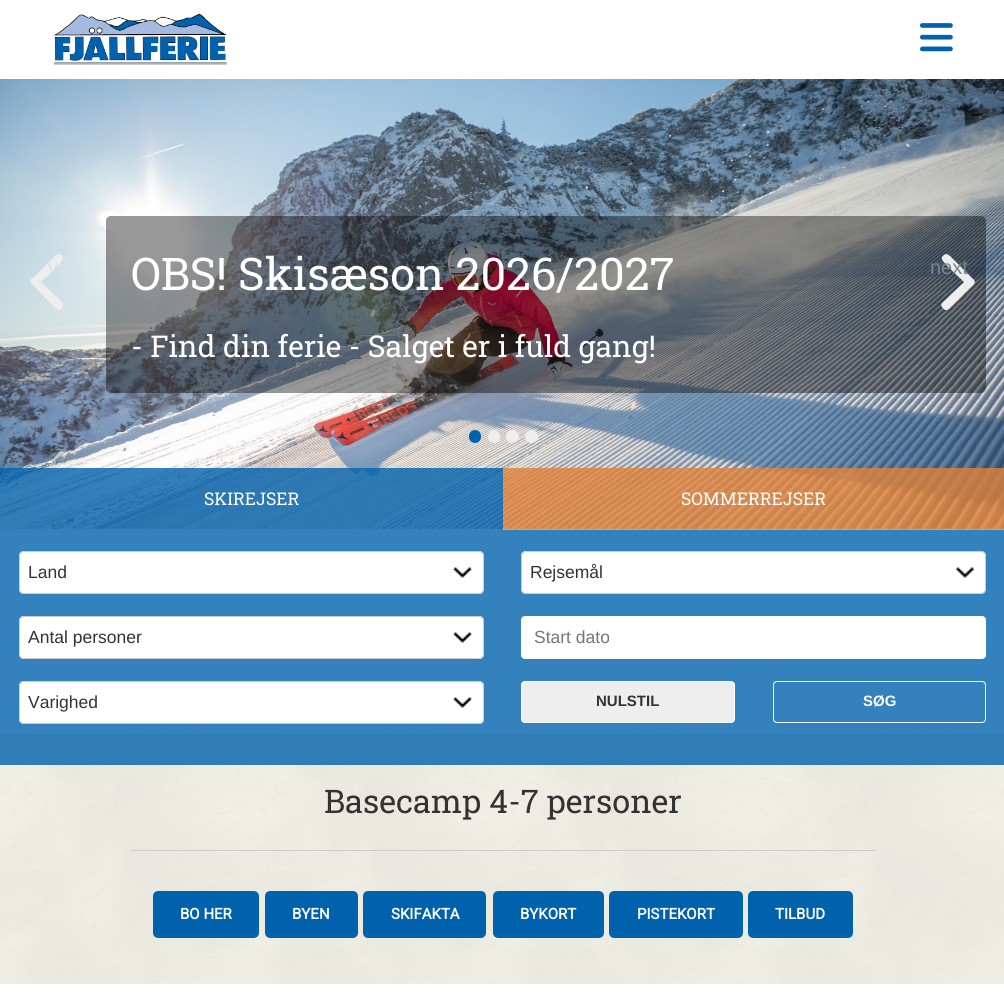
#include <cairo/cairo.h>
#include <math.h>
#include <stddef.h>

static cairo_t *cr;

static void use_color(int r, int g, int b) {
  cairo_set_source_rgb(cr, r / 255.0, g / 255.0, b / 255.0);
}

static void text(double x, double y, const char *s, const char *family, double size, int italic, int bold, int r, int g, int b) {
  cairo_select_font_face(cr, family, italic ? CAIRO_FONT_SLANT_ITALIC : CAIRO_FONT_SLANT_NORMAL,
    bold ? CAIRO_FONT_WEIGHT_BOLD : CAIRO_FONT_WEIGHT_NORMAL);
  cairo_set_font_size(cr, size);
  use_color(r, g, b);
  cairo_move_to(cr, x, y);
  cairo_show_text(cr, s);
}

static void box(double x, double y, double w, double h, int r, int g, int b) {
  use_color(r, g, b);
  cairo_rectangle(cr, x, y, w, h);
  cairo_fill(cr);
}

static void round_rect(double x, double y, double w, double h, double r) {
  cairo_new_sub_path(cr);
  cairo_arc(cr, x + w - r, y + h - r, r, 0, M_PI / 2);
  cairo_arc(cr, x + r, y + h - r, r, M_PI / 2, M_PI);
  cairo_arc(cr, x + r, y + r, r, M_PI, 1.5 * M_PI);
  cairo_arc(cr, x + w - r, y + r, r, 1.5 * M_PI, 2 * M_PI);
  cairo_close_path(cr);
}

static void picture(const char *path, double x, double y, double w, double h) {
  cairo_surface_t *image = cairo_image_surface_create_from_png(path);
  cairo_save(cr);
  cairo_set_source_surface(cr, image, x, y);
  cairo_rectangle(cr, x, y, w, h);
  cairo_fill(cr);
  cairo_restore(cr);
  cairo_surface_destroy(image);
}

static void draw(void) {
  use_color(255, 255, 255);
  cairo_paint(cr);
  picture("img_01.png", 54, 13, 173, 52);
  picture("img_02.png", 920, 23, 33, 29);
  picture("img_03.png", 0, 79, 1004, 450);
  cairo_set_source_rgba(cr, 0, 0, 0, 0.4);
  round_rect(106, 216, 880, 177, 5);
  cairo_fill(cr);
  use_color(238, 238, 238);
  cairo_new_path(cr);
  cairo_move_to(cr, 41, 282);
  cairo_curve_to(cr, 45, 279, 63, 262, 63, 259);
  cairo_curve_to(cr, 63, 257, 62, 256, 61, 255);
  cairo_curve_to(cr, 58, 252, 54, 257, 52, 259);
  cairo_line_to(cr, 35, 276);
  cairo_curve_to(cr, 34, 277, 30, 279, 30, 282);
  cairo_line_to(cr, 31, 283);
  cairo_line_to(cr, 52, 305);
  cairo_curve_to(cr, 54, 306, 58, 312, 61, 309);
  cairo_line_to(cr, 63, 306);
  cairo_line_to(cr, 63, 303);
  cairo_close_path(cr);
  cairo_fill(cr);
  cairo_new_path(cr);
  cairo_move_to(cr, 974, 280);
  cairo_line_to(cr, 953, 259);
  cairo_curve_to(cr, 951, 257, 947, 252, 944, 255);
  cairo_curve_to(cr, 943, 256, 941, 257, 942, 259);
  cairo_curve_to(cr, 942, 262, 961, 279, 964, 282);
  cairo_line_to(cr, 942, 303);
  cairo_curve_to(cr, 941, 304, 941, 306, 942, 307);
  cairo_curve_to(cr, 946, 313, 949, 309, 953, 305);
  cairo_line_to(cr, 970, 288);
  cairo_curve_to(cr, 971, 287, 977, 283, 974, 280);
  cairo_close_path(cr);
  cairo_fill(cr);
  use_color(0, 98, 172);
  round_rect(469, 430, 12, 13, 6);
  cairo_fill(cr);
  use_color(238, 238, 238);
  round_rect(488, 430, 12, 13, 6);
  cairo_fill(cr);
  cairo_arc(cr, 512.5, 436.5, 6.5, 0, 2 * M_PI);
  cairo_fill(cr);
  cairo_arc(cr, 531.5, 436.5, 6.5, 0, 2 * M_PI);
  cairo_fill(cr);
  cairo_set_source_rgba(cr, 0, 0.384, 0.675, 0.8);
  cairo_rectangle(cr, 0, 468, 503, 62);
  cairo_fill(cr);
  cairo_set_source_rgba(cr, 0.882, 0.506, 0.216, 0.8);
  cairo_rectangle(cr, 503, 468, 501, 62);
  cairo_fill(cr);
  box(0, 734, 1004, 250, 241, 240, 230);
  picture("img_06.png", 0, 734, 1004, 250);
  cairo_set_source_rgba(cr, 0, 0.384, 0.675, 0.8);
  cairo_rectangle(cr, 0, 530, 1004, 235);
  cairo_fill(cr);
  use_color(255, 255, 255);
  round_rect(19, 551, 465, 43, 5);
  cairo_fill(cr);
  picture("img_04.png", 453, 567, 19, 11);
  round_rect(19.5, 551.5, 464, 42, 4.5);
  use_color(204, 204, 204);
  cairo_set_line_width(cr, 1);
  cairo_stroke(cr);
  use_color(255, 255, 255);
  round_rect(521, 551, 465, 43, 5);
  cairo_fill(cr);
  picture("img_05.png", 956, 567, 18, 11);
  round_rect(521.5, 551.5, 464, 42, 4.5);
  use_color(204, 204, 204);
  cairo_stroke(cr);
  use_color(255, 255, 255);
  round_rect(19, 616, 465, 43, 5);
  cairo_fill(cr);
  picture("img_04.png", 453, 632, 19, 11);
  round_rect(19.5, 616.5, 464, 42, 4.5);
  use_color(204, 204, 204);
  cairo_stroke(cr);
  use_color(255, 255, 255);
  round_rect(521, 616, 465, 43, 4);
  cairo_fill(cr);
  round_rect(19, 681, 465, 43, 5);
  cairo_fill(cr);
  picture("img_04.png", 453, 697, 19, 11);
  round_rect(19.5, 681.5, 464, 42, 4.5);
  use_color(204, 204, 204);
  cairo_stroke(cr);
  use_color(238, 238, 238);
  round_rect(521.5, 681.5, 213, 41, 3.5);
  cairo_fill_preserve(cr);
  use_color(255, 255, 255);
  cairo_stroke(cr);
  round_rect(773.5, 681.5, 212, 41, 3.5);
  cairo_stroke(cr);
  box(131, 850, 744, 1, 204, 204, 204);
  use_color(0, 98, 172);
  round_rect(154.5, 892.5, 103, 44, 3.5);
  cairo_fill_preserve(cr);
  cairo_set_line_width(cr, 3);
  cairo_stroke(cr);
  round_rect(266.5, 892.5, 90, 44, 3.5);
  cairo_fill_preserve(cr);
  cairo_stroke(cr);
  round_rect(364.5, 892.5, 120, 44, 3.5);
  cairo_fill_preserve(cr);
  cairo_stroke(cr);
  round_rect(494.5, 892.5, 108, 44, 3.5);
  cairo_fill_preserve(cr);
  cairo_stroke(cr);
  round_rect(610.5, 892.5, 131, 44, 3.5);
  cairo_fill_preserve(cr);
  cairo_stroke(cr);
  round_rect(749.5, 892.5, 102, 44, 3.5);
  cairo_fill_preserve(cr);
  cairo_stroke(cr);
  text(131, 290, "OBS! Skisæson 2026/2027", "Roboto Slab", 45, 0, 0, 255, 255, 255);
  text(131, 357, "- Find din ferie - Salget er i fuld gang!", "Roboto Slab", 30, 0, 0, 255, 255, 255);
  text(48, 274, "v", "Liberation Sans", 20, 0, 0, 212, 225, 231);
  text(930, 274, "next", "Liberation Sans", 20, 0, 0, 123, 132, 141);
  text(204, 505, "SKIREJSER", "Roboto Slab", 17.5, 0, 0, 255, 255, 255);
  text(681, 505, "SOMMERREJSER", "Roboto Slab", 17.5, 0, 0, 255, 255, 255);
  text(28, 578, "Land", "Liberation Sans", 17.5, 0, 0, 51, 51, 51);
  text(530, 578, "Rejsemål", "Liberation Sans", 17.5, 0, 0, 51, 51, 51);
  text(28, 643, "Antal personer", "Liberation Sans", 17.5, 0, 0, 51, 51, 51);
  text(534, 643, "Start dato", "Liberation Sans", 17.5, 0, 0, 117, 117, 117);
  text(28, 708, "Varighed", "Liberation Sans", 17.5, 0, 0, 51, 51, 51);
  text(596, 706, "NULSTIL", "Liberation Sans", 15, 0, 1, 51, 51, 51);
  text(863, 706, "SØG", "Liberation Sans", 15, 0, 1, 255, 255, 255);
  text(324, 813, "Basecamp 4-7 personer", "Roboto Slab", 32.5, 0, 0, 51, 51, 51);
  text(180, 919, "BO HER", "Roboto", 15, 0, 1, 255, 255, 255);
  text(292, 919, "BYEN", "Roboto", 15, 0, 1, 255, 255, 255);
  text(391, 919, "SKIFAKTA", "Roboto", 15, 0, 1, 255, 255, 255);
  text(520, 919, "BYKORT", "Roboto", 15, 0, 1, 255, 255, 255);
  text(637, 919, "PISTEKORT", "Roboto", 15, 0, 1, 255, 255, 255);
  text(775, 919, "TILBUD", "Roboto", 15, 0, 1, 255, 255, 255);
}

int main(void) {
  cairo_surface_t *surface = cairo_image_surface_create(CAIRO_FORMAT_RGB24, 1004, 999);
  cr = cairo_create(surface);
  cairo_font_options_t *options = cairo_font_options_create();
  cairo_font_options_set_hint_metrics(options, CAIRO_HINT_METRICS_OFF);
  cairo_font_options_set_hint_style(options, CAIRO_HINT_STYLE_NONE);
  cairo_set_font_options(cr, options);
  cairo_set_miter_limit(cr, 4);
  draw();
  cairo_surface_write_to_png(surface, "out.png");
  cairo_font_options_destroy(options);
  cairo_destroy(cr);
  cairo_surface_destroy(surface);
  return 0;
}
